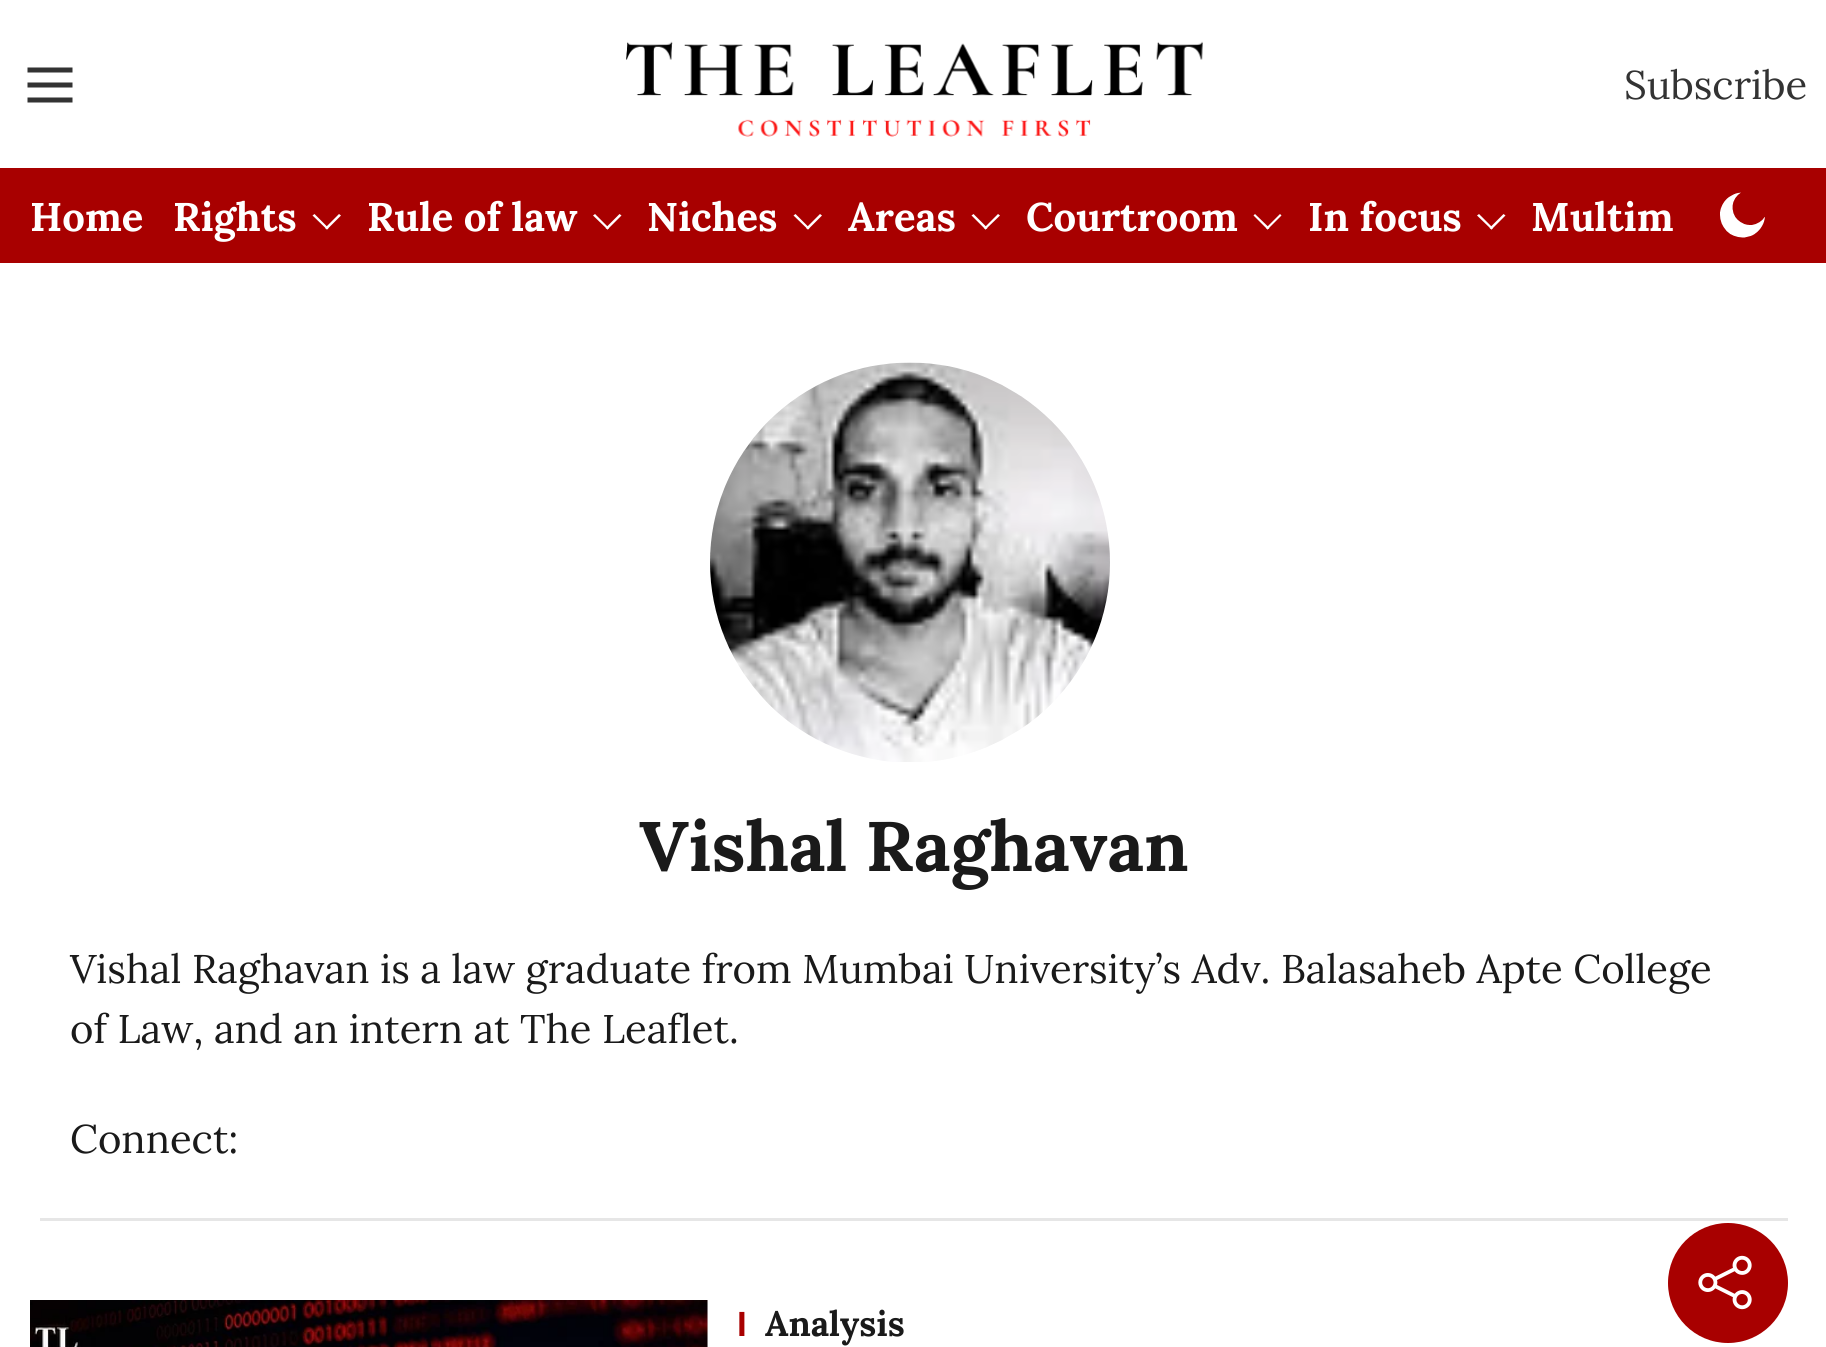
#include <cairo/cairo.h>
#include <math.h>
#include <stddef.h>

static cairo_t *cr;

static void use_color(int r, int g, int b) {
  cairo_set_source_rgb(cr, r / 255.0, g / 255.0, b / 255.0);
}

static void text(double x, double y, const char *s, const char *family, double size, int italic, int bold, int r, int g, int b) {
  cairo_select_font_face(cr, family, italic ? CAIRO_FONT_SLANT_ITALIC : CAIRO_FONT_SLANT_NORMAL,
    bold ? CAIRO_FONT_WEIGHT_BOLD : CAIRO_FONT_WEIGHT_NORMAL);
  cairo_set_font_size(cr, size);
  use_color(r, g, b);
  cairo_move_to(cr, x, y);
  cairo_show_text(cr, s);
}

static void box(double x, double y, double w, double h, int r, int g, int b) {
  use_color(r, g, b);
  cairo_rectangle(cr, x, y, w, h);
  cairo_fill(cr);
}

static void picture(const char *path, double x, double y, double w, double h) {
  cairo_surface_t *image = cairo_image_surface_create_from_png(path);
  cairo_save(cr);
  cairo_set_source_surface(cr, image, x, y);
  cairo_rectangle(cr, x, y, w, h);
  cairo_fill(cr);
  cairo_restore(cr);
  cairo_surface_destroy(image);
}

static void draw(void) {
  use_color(255, 255, 255);
  cairo_paint(cr);
  picture("img_01.png", 27, 67, 46, 36);
  picture("img_02.png", 626, 41, 577, 96);
  box(0, 168, 1826, 95, 168, 0, 0);
  use_color(255, 255, 255);
  cairo_new_path(cr);
  cairo_move_to(cr, 339, 214);
  cairo_line_to(cr, 341, 215.5);
  cairo_line_to(cr, 327, 229.5);
  cairo_line_to(cr, 325, 228);
  cairo_close_path(cr);
  cairo_fill(cr);
  cairo_new_path(cr);
  cairo_move_to(cr, 314.5, 214);
  cairo_line_to(cr, 328.5, 228);
  cairo_line_to(cr, 327, 229.5);
  cairo_line_to(cr, 312.5, 215.5);
  cairo_close_path(cr);
  cairo_fill(cr);
  cairo_new_path(cr);
  cairo_move_to(cr, 619.5, 214);
  cairo_line_to(cr, 621.5, 215.5);
  cairo_line_to(cr, 607.5, 229.5);
  cairo_line_to(cr, 605.5, 228);
  cairo_close_path(cr);
  cairo_fill(cr);
  cairo_new_path(cr);
  cairo_move_to(cr, 595, 214);
  cairo_line_to(cr, 609, 228);
  cairo_line_to(cr, 607.5, 229.5);
  cairo_line_to(cr, 593, 215.5);
  cairo_close_path(cr);
  cairo_fill(cr);
  cairo_new_path(cr);
  cairo_move_to(cr, 820, 214);
  cairo_line_to(cr, 822, 215.5);
  cairo_line_to(cr, 808, 229.5);
  cairo_line_to(cr, 806, 228);
  cairo_close_path(cr);
  cairo_fill(cr);
  cairo_new_path(cr);
  cairo_move_to(cr, 795.5, 214);
  cairo_line_to(cr, 809.5, 228);
  cairo_line_to(cr, 808, 229.5);
  cairo_line_to(cr, 793.5, 215.5);
  cairo_close_path(cr);
  cairo_fill(cr);
  cairo_new_path(cr);
  cairo_move_to(cr, 998, 214);
  cairo_line_to(cr, 1000, 215.5);
  cairo_line_to(cr, 985.5, 229.5);
  cairo_line_to(cr, 984, 228);
  cairo_close_path(cr);
  cairo_fill(cr);
  cairo_new_path(cr);
  cairo_move_to(cr, 973.5, 214);
  cairo_line_to(cr, 987.5, 228);
  cairo_line_to(cr, 985.5, 229.5);
  cairo_line_to(cr, 971.5, 215.5);
  cairo_close_path(cr);
  cairo_fill(cr);
  cairo_new_path(cr);
  cairo_move_to(cr, 1280, 214);
  cairo_line_to(cr, 1281.5, 215.5);
  cairo_line_to(cr, 1267.5, 229.5);
  cairo_line_to(cr, 1266, 228);
  cairo_close_path(cr);
  cairo_fill(cr);
  cairo_new_path(cr);
  cairo_move_to(cr, 1255, 214);
  cairo_line_to(cr, 1269.5, 228);
  cairo_line_to(cr, 1267.5, 229.5);
  cairo_line_to(cr, 1253.5, 215.5);
  cairo_close_path(cr);
  cairo_fill(cr);
  cairo_new_path(cr);
  cairo_move_to(cr, 1503.5, 214);
  cairo_line_to(cr, 1505.5, 215.5);
  cairo_line_to(cr, 1491.5, 229.5);
  cairo_line_to(cr, 1489.5, 228);
  cairo_close_path(cr);
  cairo_fill(cr);
  cairo_new_path(cr);
  cairo_move_to(cr, 1479, 214);
  cairo_line_to(cr, 1493, 228);
  cairo_line_to(cr, 1491.5, 229.5);
  cairo_line_to(cr, 1477, 215.5);
  cairo_close_path(cr);
  cairo_fill(cr);
  picture("img_03.png", 1720, 192, 45, 46);
  box(40, 1218, 1748, 3, 230, 230, 230);
  picture("img_04.png", 710, 362, 400, 400);
  use_color(168, 0, 0);
  cairo_arc(cr, 1728, 1283, 60, 0, 2 * M_PI);
  cairo_fill(cr);
  picture("img_05.png", 1698, 1255, 54, 55);
  box(707, 1300, 1, 47, 240, 240, 240);
  picture("img_06.png", 30, 1300, 678, 47);
  text(1624, 99, "Subscribe", "Lora", 40, 0, 0, 51, 51, 51);
  text(30, 231, "Home", "Lora", 40, 0, 1, 255, 255, 255);
  text(173, 231, "Rights", "Lora", 40, 0, 1, 255, 255, 255);
  text(367, 231, "Rule of law", "Lora", 40, 0, 1, 255, 255, 255);
  text(647, 231, "Niches", "Lora", 40, 0, 1, 255, 255, 255);
  text(848, 231, "Areas", "Lora", 40, 0, 1, 255, 255, 255);
  text(1026, 231, "Courtroom", "Lora", 40, 0, 1, 255, 255, 255);
  text(1308, 231, "In focus", "Lora", 40, 0, 1, 255, 255, 255);
  text(1531, 231, "Multim", "Lora", 40, 0, 1, 255, 255, 255);
  text(639, 871, "Vishal Raghavan", "Lora", 70, 0, 1, 26, 26, 26);
  text(70, 983, "Vishal Raghavan is a law graduate from Mumbai University’s Adv. Balasaheb Apte College", "Lora", 40, 0, 0, 26, 26, 26);
  text(70, 1043, "of Law, and an intern at The Leaflet.", "Lora", 40, 0, 0, 26, 26, 26);
  text(70, 1153, "Connect:", "Lora", 40, 0, 0, 26, 26, 26);
  text(737, 1336, "I", "Liberation Sans", 35, 0, 1, 168, 0, 0);
  text(765, 1336, "Analysis", "Lora", 35, 0, 1, 26, 26, 26);
}

int main(void) {
  cairo_surface_t *surface = cairo_image_surface_create(CAIRO_FORMAT_RGB24, 1826, 1347);
  cr = cairo_create(surface);
  cairo_font_options_t *options = cairo_font_options_create();
  cairo_font_options_set_hint_metrics(options, CAIRO_HINT_METRICS_OFF);
  cairo_font_options_set_hint_style(options, CAIRO_HINT_STYLE_NONE);
  cairo_set_font_options(cr, options);
  cairo_set_miter_limit(cr, 4);
  draw();
  cairo_surface_write_to_png(surface, "out.png");
  cairo_font_options_destroy(options);
  cairo_destroy(cr);
  cairo_surface_destroy(surface);
  return 0;
}
